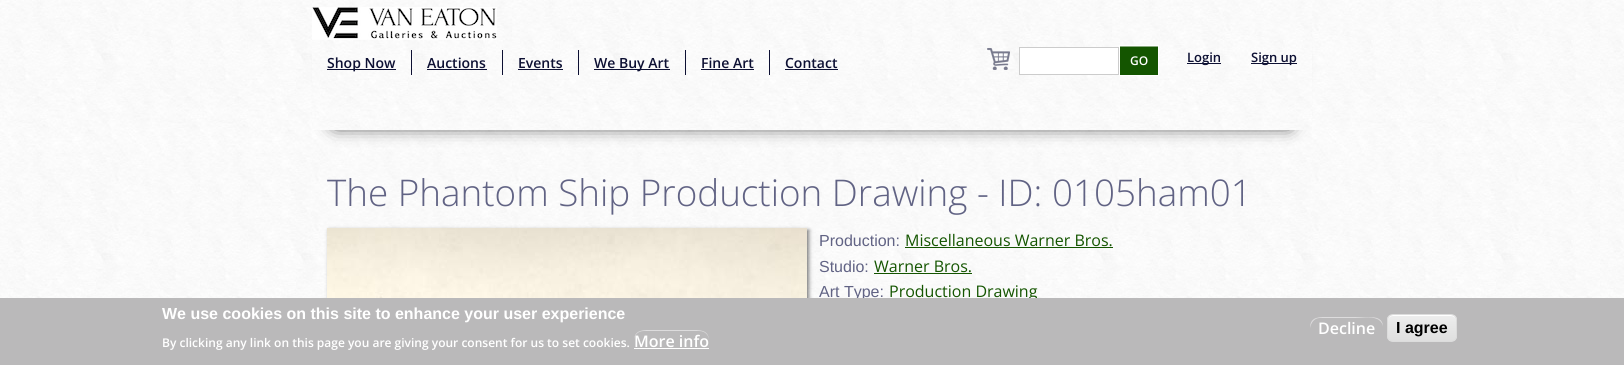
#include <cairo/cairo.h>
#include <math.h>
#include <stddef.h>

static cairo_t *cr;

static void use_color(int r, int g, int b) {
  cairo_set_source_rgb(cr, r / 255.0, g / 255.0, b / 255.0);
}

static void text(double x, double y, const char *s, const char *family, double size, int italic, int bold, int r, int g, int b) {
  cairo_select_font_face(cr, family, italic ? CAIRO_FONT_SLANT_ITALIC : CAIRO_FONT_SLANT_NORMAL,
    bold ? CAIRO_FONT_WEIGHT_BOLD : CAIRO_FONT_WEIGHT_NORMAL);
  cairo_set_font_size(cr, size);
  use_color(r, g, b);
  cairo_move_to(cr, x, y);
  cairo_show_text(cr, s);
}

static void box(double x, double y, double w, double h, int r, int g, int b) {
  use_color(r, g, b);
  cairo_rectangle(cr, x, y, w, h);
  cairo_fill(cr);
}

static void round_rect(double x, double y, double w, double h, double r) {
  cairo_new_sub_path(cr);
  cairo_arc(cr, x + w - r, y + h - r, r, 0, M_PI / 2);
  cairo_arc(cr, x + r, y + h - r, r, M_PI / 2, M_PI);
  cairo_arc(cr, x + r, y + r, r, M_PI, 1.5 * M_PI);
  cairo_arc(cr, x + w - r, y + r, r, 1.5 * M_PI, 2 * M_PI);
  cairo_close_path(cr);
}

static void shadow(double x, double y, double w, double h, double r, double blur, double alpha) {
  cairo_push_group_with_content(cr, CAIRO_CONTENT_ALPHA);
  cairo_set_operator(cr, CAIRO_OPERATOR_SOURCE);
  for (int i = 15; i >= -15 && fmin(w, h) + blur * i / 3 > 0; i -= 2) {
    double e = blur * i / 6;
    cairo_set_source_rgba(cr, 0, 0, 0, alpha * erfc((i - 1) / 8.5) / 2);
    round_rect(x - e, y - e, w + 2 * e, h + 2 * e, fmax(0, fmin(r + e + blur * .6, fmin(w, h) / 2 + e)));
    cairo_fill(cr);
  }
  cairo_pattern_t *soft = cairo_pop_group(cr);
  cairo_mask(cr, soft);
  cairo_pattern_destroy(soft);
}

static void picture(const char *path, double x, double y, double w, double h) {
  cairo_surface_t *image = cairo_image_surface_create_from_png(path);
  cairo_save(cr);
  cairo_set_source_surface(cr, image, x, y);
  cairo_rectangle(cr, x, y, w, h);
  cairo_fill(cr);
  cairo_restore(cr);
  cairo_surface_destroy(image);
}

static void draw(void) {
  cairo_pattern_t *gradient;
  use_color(255, 255, 255);
  cairo_paint(cr);
  picture("img_01.png", 0, 0, 1624, 298);
  use_color(0, 0, 0);
  shadow(335, 40, 954, 84, 0, 9.5, 1);
  picture("img_02.png", 312, 0, 1000, 130);
  picture("img_03.png", 312, 7, 185, 33);
  picture("img_04.png", 987, 48, 23, 22);
  box(327, 69, 69, 1, 13, 16, 51);
  box(411, 50, 1, 25, 13, 16, 51);
  box(427, 69, 60, 1, 13, 16, 51);
  box(502, 50, 1, 25, 13, 16, 51);
  box(518, 69, 45, 1, 13, 16, 51);
  box(578, 50, 1, 25, 13, 16, 51);
  box(594, 69, 76, 1, 13, 16, 51);
  box(685, 50, 1, 25, 13, 16, 51);
  box(701, 69, 53, 1, 13, 16, 51);
  box(769, 50, 1, 25, 13, 16, 51);
  box(785, 69, 53, 1, 13, 16, 51);
  box(1187, 63, 34, 1, 13, 16, 51);
  box(1251, 63, 46, 1, 13, 16, 51);
  use_color(255, 255, 255);
  cairo_rectangle(cr, 1019.5, 47.5, 99, 27);
  cairo_fill_preserve(cr);
  use_color(204, 204, 204);
  cairo_set_line_width(cr, 1);
  cairo_stroke(cr);
  box(1120, 47, 38, 28, 20, 85, 0);
  box(1120, 46, 38, 1, 138, 170, 128);
  cairo_rectangle(cr, 1119.5, 45.5, 39, 30);
  use_color(255, 255, 255);
  cairo_stroke(cr);
  use_color(0, 0, 0);
  shadow(329, 230, 480, 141, 0, 2, 0.5);
  picture("img_05.png", 327, 228, 480, 70);
  box(905, 247, 208, 1, 20, 85, 0);
  box(874, 273, 98, 1, 20, 85, 0);
  text(327, 68, "Shop Now", "Open Sans SemiBold", 14, 0, 0, 13, 16, 51);
  text(427, 68, "Auctions", "Open Sans SemiBold", 14, 0, 0, 13, 16, 51);
  text(518, 68, "Events", "Open Sans SemiBold", 14, 0, 0, 13, 16, 51);
  text(594, 68, "We Buy Art", "Open Sans SemiBold", 14, 0, 0, 13, 16, 51);
  text(701, 68, "Fine Art", "Open Sans SemiBold", 14, 0, 0, 13, 16, 51);
  text(785, 68, "Contact", "Open Sans SemiBold", 14, 0, 0, 13, 16, 51);
  text(1187, 62, "Login", "Open Sans SemiBold", 13, 0, 0, 13, 16, 51);
  text(1251, 62, "Sign up", "Open Sans SemiBold", 13, 0, 0, 13, 16, 51);
  text(1130, 65, "GO", "Open Sans SemiBold", 12, 0, 0, 255, 255, 255);
  text(327, 206, "The Phantom Ship Production Drawing - ID: 0105ham01", "Open Sans Light", 36.8, 0, 0, 97, 99, 132);
  text(819, 246, "Production:", "Liberation Sans", 16, 0, 0, 97, 99, 132);
  text(905, 246, "Miscellaneous Warner Bros.", "Open Sans", 16, 0, 0, 20, 85, 0);
  text(819, 272, "Studio:", "Liberation Sans", 16, 0, 0, 97, 99, 132);
  text(874, 272, "Warner Bros.", "Open Sans", 16, 0, 0, 20, 85, 0);
  text(819, 297, "Art Type:", "Liberation Sans", 16, 0, 0, 97, 99, 132);
  text(889, 297, "Production Drawing", "Open Sans", 16, 0, 0, 20, 85, 0);
  box(0, 298, 1624, 67, 186, 185, 186);
  text(162, 319, "We use cookies on this site to enhance your user experience", "Liberation Sans", 16, 0, 1, 255, 255, 255);
  text(162, 347, "By clicking any link on this page you are giving your consent for us to set cookies.", "Open Sans SemiBold", 12, 0, 0, 255, 255, 255);
  use_color(221, 220, 221);
  cairo_new_path(cr);
  cairo_move_to(cr, 644, 331);
  cairo_line_to(cr, 699, 331);
  cairo_curve_to(cr, 705, 331, 709, 335, 709, 341);
  cairo_curve_to(cr, 709, 329, 699, 330, 690, 330);
  cairo_line_to(cr, 653, 330);
  cairo_curve_to(cr, 644, 330, 634, 329, 634, 341);
  cairo_curve_to(cr, 634, 335, 638, 331, 644, 331);
  cairo_close_path(cr);
  cairo_fill(cr);
  text(634, 347, "More info", "Open Sans SemiBold", 16, 0, 0, 255, 255, 255);
  box(634, 348, 75, 1, 255, 255, 255);
  use_color(221, 220, 221);
  cairo_new_path(cr);
  cairo_move_to(cr, 1320, 318);
  cairo_line_to(cr, 1355, 318);
  cairo_curve_to(cr, 1362, 318, 1370, 316, 1377, 319);
  cairo_curve_to(cr, 1380, 320, 1383, 324, 1383, 327);
  cairo_curve_to(cr, 1383, 316, 1372, 317, 1364, 317);
  cairo_line_to(cr, 1329, 317);
  cairo_curve_to(cr, 1320, 317, 1310, 316, 1310, 328);
  cairo_curve_to(cr, 1311, 323, 1314, 318, 1320, 318);
  cairo_close_path(cr);
  cairo_fill(cr);
  text(1318, 334, "Decline", "Open Sans SemiBold", 16, 0, 0, 255, 255, 255);
  cairo_save(cr);
  round_rect(1387, 314, 70, 28, 6);
  cairo_clip(cr);
  gradient = cairo_pattern_create_linear(1422, 315, 1422, 341);
  cairo_pattern_add_color_stop_rgba(gradient, 0.05, 0.929, 0.929, 0.929, 1);
  cairo_pattern_add_color_stop_rgba(gradient, 1, 0.875, 0.875, 0.875, 1);
  cairo_set_source(cr, gradient);
  cairo_pattern_destroy(gradient);
  cairo_rectangle(cr, 1387, 315, 70, 26);
  cairo_fill(cr);
  cairo_restore(cr);
  cairo_new_path(cr);
  cairo_move_to(cr, 1393, 316);
  cairo_line_to(cr, 1451, 316);
  cairo_curve_to(cr, 1454, 316, 1456, 318, 1456, 321);
  cairo_curve_to(cr, 1456, 313, 1447, 315, 1441, 315);
  cairo_line_to(cr, 1403, 315);
  cairo_curve_to(cr, 1397, 315, 1388, 313, 1388, 321);
  cairo_curve_to(cr, 1388, 318, 1390, 316, 1393, 316);
  cairo_close_path(cr);
  cairo_fill(cr);
  round_rect(1387.5, 314.5, 69, 27, 5.5);
  use_color(220, 220, 220);
  cairo_stroke(cr);
  text(1396, 333, "I agree", "Liberation Sans", 16, 0, 1, 0, 0, 0);
}

int main(void) {
  cairo_surface_t *surface = cairo_image_surface_create(CAIRO_FORMAT_RGB24, 1624, 365);
  cr = cairo_create(surface);
  cairo_font_options_t *options = cairo_font_options_create();
  cairo_font_options_set_hint_metrics(options, CAIRO_HINT_METRICS_OFF);
  cairo_font_options_set_hint_style(options, CAIRO_HINT_STYLE_NONE);
  cairo_set_font_options(cr, options);
  cairo_set_miter_limit(cr, 4);
  draw();
  cairo_surface_write_to_png(surface, "out.png");
  cairo_font_options_destroy(options);
  cairo_destroy(cr);
  cairo_surface_destroy(surface);
  return 0;
}
